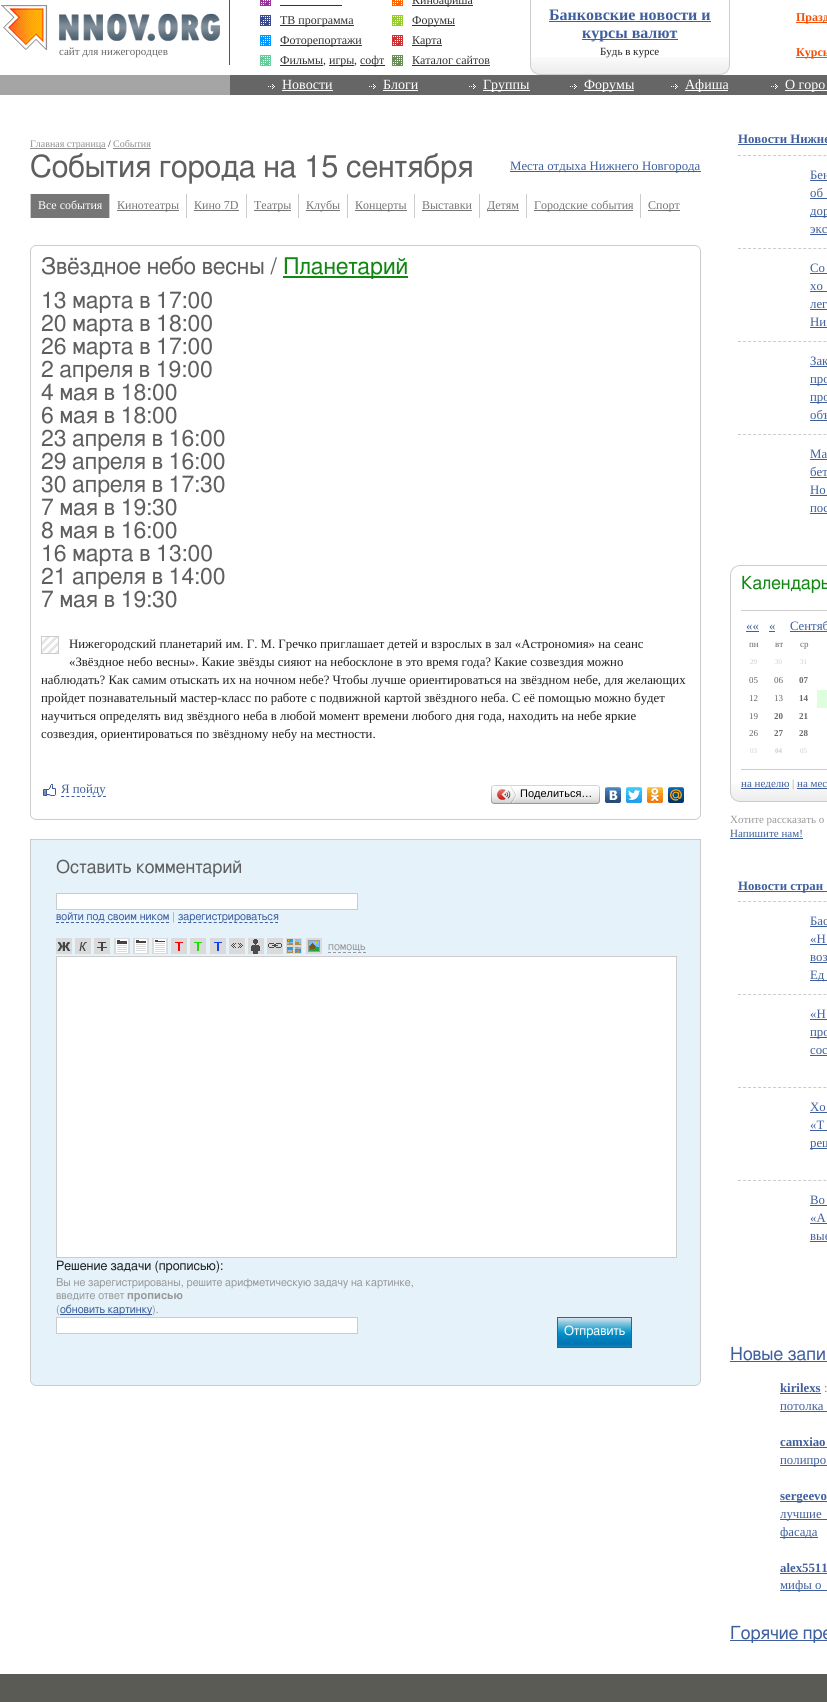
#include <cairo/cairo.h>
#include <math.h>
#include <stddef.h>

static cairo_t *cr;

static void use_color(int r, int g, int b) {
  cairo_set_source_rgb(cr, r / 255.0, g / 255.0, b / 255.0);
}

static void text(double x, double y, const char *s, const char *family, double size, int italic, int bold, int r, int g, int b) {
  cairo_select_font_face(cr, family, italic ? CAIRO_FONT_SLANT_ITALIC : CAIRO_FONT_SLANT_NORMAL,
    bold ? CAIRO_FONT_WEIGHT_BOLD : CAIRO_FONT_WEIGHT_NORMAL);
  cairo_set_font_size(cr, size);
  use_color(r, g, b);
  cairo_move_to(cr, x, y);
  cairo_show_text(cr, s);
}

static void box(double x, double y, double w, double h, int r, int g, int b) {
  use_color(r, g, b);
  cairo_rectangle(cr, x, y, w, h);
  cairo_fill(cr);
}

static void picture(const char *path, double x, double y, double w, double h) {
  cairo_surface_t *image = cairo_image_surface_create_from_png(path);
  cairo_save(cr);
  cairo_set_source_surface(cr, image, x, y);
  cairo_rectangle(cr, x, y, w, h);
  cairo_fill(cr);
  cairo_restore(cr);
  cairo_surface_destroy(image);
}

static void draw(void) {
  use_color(255, 255, 255);
  cairo_paint(cr);
  picture("img_01.png", 1, 5, 219, 45);
  box(229, 0, 1, 65, 61, 94, 111);
  box(260, 0, 11, 6, 153, 51, 153);
  picture("img_02.png", 261, 0, 9, 5);
  box(280, 5, 62, 1, 51, 51, 51);
  box(392, 0, 11, 6, 255, 102, 0);
  picture("img_03.png", 393, 0, 9, 5);
  box(412, 5, 61, 1, 51, 51, 51);
  box(260, 15, 11, 11, 59, 75, 140);
  picture("img_04.png", 261, 16, 9, 9);
  box(280, 25, 74, 1, 51, 51, 51);
  box(392, 15, 11, 11, 153, 204, 51);
  picture("img_05.png", 393, 16, 9, 9);
  box(412, 25, 43, 1, 51, 51, 51);
  box(260, 35, 11, 11, 0, 153, 255);
  picture("img_06.png", 261, 36, 9, 9);
  box(280, 45, 82, 1, 51, 51, 51);
  box(392, 35, 11, 11, 204, 51, 51);
  picture("img_07.png", 393, 36, 9, 9);
  box(412, 45, 30, 1, 51, 51, 51);
  box(260, 55, 11, 11, 102, 204, 153);
  picture("img_08.png", 261, 56, 9, 9);
  box(280, 65, 43, 1, 51, 51, 51);
  box(329, 65, 25, 1, 51, 51, 51);
  box(360, 65, 25, 1, 51, 51, 51);
  box(392, 55, 11, 11, 107, 143, 89);
  picture("img_09.png", 393, 56, 9, 9);
  box(412, 65, 78, 1, 51, 51, 51);
  picture("img_10.png", 531, 57, 198, 17);
  cairo_rectangle(cr, 530.5, -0.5, 199, 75);
  use_color(204, 204, 204);
  cairo_set_line_width(cr, 1);
  cairo_stroke(cr);
  box(549, 21, 162, 1, 63, 95, 158);
  box(582, 39, 96, 1, 63, 95, 158);
  picture("img_11.png", 530, 66, 9, 9);
  picture("img_12.png", 721, 66, 9, 9);
  box(796, 22, 31, 1, 248, 78, 5);
  box(796, 57, 31, 1, 248, 78, 5);
  box(230, 75, 597, 20, 102, 102, 102);
  box(0, 75, 230, 20, 165, 165, 165);
  picture("img_13.png", 268, 84, 7, 5);
  box(282, 90, 51, 1, 255, 255, 255);
  picture("img_13.png", 369, 84, 7, 5);
  box(383, 90, 35, 1, 255, 255, 255);
  picture("img_13.png", 469, 84, 7, 5);
  box(483, 90, 47, 1, 255, 255, 255);
  picture("img_13.png", 570, 84, 7, 5);
  box(584, 90, 50, 1, 255, 255, 255);
  picture("img_13.png", 671, 84, 7, 5);
  box(685, 90, 43, 1, 255, 255, 255);
  picture("img_13.png", 771, 84, 7, 5);
  box(785, 90, 42, 1, 255, 255, 255);
  box(30, 148, 76, 1, 143, 143, 143);
  box(113, 148, 38, 1, 143, 143, 143);
  box(510, 171, 191, 1, 63, 95, 158);
  box(31, 194, 78, 24, 118, 118, 118);
  box(30, 194, 1, 24, 204, 204, 204);
  box(109, 194, 1, 24, 204, 204, 204);
  box(117, 210, 62, 1, 118, 118, 118);
  box(186, 194, 1, 24, 204, 204, 204);
  box(194, 210, 45, 1, 118, 118, 118);
  box(246, 194, 1, 24, 204, 204, 204);
  box(254, 210, 37, 1, 118, 118, 118);
  box(298, 194, 1, 24, 204, 204, 204);
  box(306, 210, 34, 1, 118, 118, 118);
  box(347, 194, 1, 24, 204, 204, 204);
  box(355, 210, 52, 1, 118, 118, 118);
  box(414, 194, 1, 24, 204, 204, 204);
  box(422, 210, 50, 1, 118, 118, 118);
  box(479, 194, 1, 24, 204, 204, 204);
  box(487, 210, 32, 1, 118, 118, 118);
  box(526, 194, 1, 24, 204, 204, 204);
  box(534, 210, 99, 1, 118, 118, 118);
  box(640, 194, 1, 24, 204, 204, 204);
  box(648, 210, 32, 1, 118, 118, 118);
  cairo_rectangle(cr, 30.5, 245.5, 670, 574);
  use_color(204, 204, 204);
  cairo_stroke(cr);
  picture("img_14.png", 30, 245, 5, 5);
  picture("img_15.png", 696, 245, 5, 5);
  box(283, 276, 125, 2, 17, 136, 17);
  picture("img_16.png", 42, 637, 16, 16);
  cairo_rectangle(cr, 41.5, 636.5, 17, 17);
  use_color(204, 204, 204);
  cairo_stroke(cr);
  picture("img_17.png", 43, 784, 13, 12);
  cairo_new_path(cr);
  cairo_move_to(cr, 61, 796.5);
  cairo_line_to(cr, 106, 796.5);
  use_color(63, 95, 158);
  cairo_set_dash(cr, (double[]){3, 2.25}, 2, 0);
  cairo_stroke(cr);
  picture("img_18.png", 494, 785, 103, 19);
  picture("img_19.png", 491, 785, 3, 19);
  picture("img_20.png", 497, 786, 20, 17);
  picture("img_21.png", 597, 785, 3, 19);
  picture("img_22.png", 605, 787, 16, 16);
  picture("img_23.png", 626, 787, 16, 16);
  picture("img_24.png", 647, 787, 16, 16);
  picture("img_25.png", 668, 787, 16, 16);
  picture("img_26.png", 30, 815, 5, 5);
  picture("img_27.png", 696, 815, 5, 5);
  use_color(229, 242, 250);
  cairo_rectangle(cr, 30.5, 839.5, 670, 546);
  cairo_fill_preserve(cr);
  use_color(204, 204, 204);
  cairo_set_dash(cr, NULL, 0, 0);
  cairo_stroke(cr);
  use_color(255, 255, 255);
  cairo_rectangle(cr, 56.5, 893.5, 301, 16);
  cairo_fill_preserve(cr);
  use_color(204, 204, 204);
  cairo_stroke(cr);
  cairo_new_path(cr);
  cairo_move_to(cr, 56, 922.5);
  cairo_line_to(cr, 169, 922.5);
  use_color(63, 95, 158);
  cairo_set_dash(cr, (double[]){3, 2}, 2, 0);
  cairo_stroke(cr);
  cairo_new_path(cr);
  cairo_move_to(cr, 178, 922.5);
  cairo_line_to(cr, 278, 922.5);
  cairo_set_dash(cr, (double[]){3, 2.11}, 2, 0);
  cairo_stroke(cr);
  picture("img_28.png", 56, 938, 16, 16);
  picture("img_29.png", 75, 938, 16, 16);
  picture("img_30.png", 94, 938, 16, 16);
  picture("img_31.png", 114, 938, 16, 16);
  picture("img_32.png", 133, 938, 16, 16);
  picture("img_33.png", 152, 938, 16, 16);
  picture("img_34.png", 171, 938, 16, 16);
  picture("img_35.png", 190, 938, 16, 16);
  picture("img_36.png", 210, 938, 16, 16);
  picture("img_37.png", 229, 938, 16, 16);
  picture("img_38.png", 248, 938, 16, 16);
  picture("img_39.png", 267, 938, 16, 16);
  picture("img_40.png", 286, 938, 16, 16);
  picture("img_41.png", 306, 938, 16, 16);
  cairo_new_path(cr);
  cairo_move_to(cr, 328, 952.5);
  cairo_line_to(cr, 366, 952.5);
  use_color(153, 153, 153);
  cairo_set_dash(cr, (double[]){3, 2}, 2, 0);
  cairo_stroke(cr);
  use_color(255, 255, 255);
  cairo_rectangle(cr, 56.5, 956.5, 620, 301);
  cairo_fill_preserve(cr);
  use_color(204, 204, 204);
  cairo_set_dash(cr, NULL, 0, 0);
  cairo_stroke(cr);
  box(60, 1314, 92, 1, 63, 95, 158);
  use_color(255, 255, 255);
  cairo_rectangle(cr, 56.5, 1317.5, 301, 16);
  cairo_fill_preserve(cr);
  use_color(204, 204, 204);
  cairo_stroke(cr);
  picture("img_42.png", 558, 1318, 73, 29);
  cairo_rectangle(cr, 557.5, 1317.5, 74, 30);
  use_color(1, 117, 176);
  cairo_stroke(cr);
  picture("img_43.png", 30, 1381, 5, 5);
  picture("img_44.png", 696, 1381, 5, 5);
  box(738, 144, 89, 1, 63, 95, 158);
  cairo_new_path(cr);
  cairo_move_to(cr, 738, 155.5);
  cairo_line_to(cr, 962, 155.5);
  use_color(204, 204, 204);
  cairo_set_dash(cr, (double[]){3, 2.02}, 2, 0);
  cairo_stroke(cr);
  box(810, 180, 17, 1, 63, 95, 158);
  box(810, 198, 17, 1, 63, 95, 158);
  box(810, 216, 17, 1, 63, 95, 158);
  box(810, 234, 17, 1, 63, 95, 158);
  cairo_new_path(cr);
  cairo_move_to(cr, 738, 248.5);
  cairo_line_to(cr, 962, 248.5);
  use_color(204, 204, 204);
  cairo_stroke(cr);
  box(810, 273, 17, 1, 63, 95, 158);
  box(810, 291, 17, 1, 63, 95, 158);
  box(810, 309, 17, 1, 63, 95, 158);
  box(810, 327, 17, 1, 63, 95, 158);
  cairo_new_path(cr);
  cairo_move_to(cr, 738, 341.5);
  cairo_line_to(cr, 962, 341.5);
  use_color(204, 204, 204);
  cairo_stroke(cr);
  box(810, 366, 17, 1, 63, 95, 158);
  box(810, 384, 17, 1, 63, 95, 158);
  box(810, 402, 17, 1, 63, 95, 158);
  box(810, 420, 17, 1, 63, 95, 158);
  cairo_new_path(cr);
  cairo_move_to(cr, 738, 434.5);
  cairo_line_to(cr, 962, 434.5);
  use_color(204, 204, 204);
  cairo_stroke(cr);
  box(810, 459, 17, 1, 63, 95, 158);
  box(810, 477, 17, 1, 63, 95, 158);
  box(810, 495, 17, 1, 63, 95, 158);
  box(810, 513, 17, 1, 63, 95, 158);
  picture("img_45.png", 731, 784, 96, 17);
  cairo_rectangle(cr, 730.5, 565.5, 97, 236);
  use_color(204, 204, 204);
  cairo_set_dash(cr, NULL, 0, 0);
  cairo_stroke(cr);
  picture("img_46.png", 730, 565, 9, 9);
  box(741, 610, 86, 1, 204, 204, 204);
  box(746, 631, 13, 1, 63, 95, 158);
  box(769, 631, 6, 1, 63, 95, 158);
  box(790, 631, 37, 1, 63, 95, 158);
  box(817, 690, 10, 18, 221, 255, 221);
  box(741, 769, 86, 1, 204, 204, 204);
  box(741, 788, 48, 1, 63, 95, 158);
  box(797, 788, 30, 1, 63, 95, 158);
  picture("img_11.png", 730, 793, 9, 9);
  box(730, 838, 73, 1, 63, 95, 158);
  box(738, 891, 89, 1, 63, 95, 158);
  cairo_new_path(cr);
  cairo_move_to(cr, 738, 901.5);
  cairo_line_to(cr, 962, 901.5);
  use_color(204, 204, 204);
  cairo_set_dash(cr, (double[]){3, 2.02}, 2, 0);
  cairo_stroke(cr);
  box(810, 926, 17, 1, 63, 95, 158);
  box(810, 944, 17, 1, 63, 95, 158);
  box(810, 962, 17, 1, 63, 95, 158);
  box(810, 980, 17, 1, 63, 95, 158);
  cairo_new_path(cr);
  cairo_move_to(cr, 738, 994.5);
  cairo_line_to(cr, 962, 994.5);
  use_color(204, 204, 204);
  cairo_stroke(cr);
  box(810, 1019, 17, 1, 63, 95, 158);
  box(810, 1037, 17, 1, 63, 95, 158);
  box(810, 1055, 17, 1, 63, 95, 158);
  cairo_new_path(cr);
  cairo_move_to(cr, 738, 1087.5);
  cairo_line_to(cr, 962, 1087.5);
  use_color(204, 204, 204);
  cairo_stroke(cr);
  box(810, 1112, 17, 1, 63, 95, 158);
  box(810, 1130, 17, 1, 63, 95, 158);
  box(810, 1148, 17, 1, 63, 95, 158);
  cairo_new_path(cr);
  cairo_move_to(cr, 738, 1180.5);
  cairo_line_to(cr, 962, 1180.5);
  use_color(204, 204, 204);
  cairo_stroke(cr);
  box(810, 1205, 17, 1, 63, 95, 158);
  box(810, 1223, 17, 1, 63, 95, 158);
  box(810, 1241, 17, 1, 63, 95, 158);
  box(730, 1361, 97, 1, 63, 95, 158);
  box(780, 1393, 41, 1, 63, 95, 158);
  box(780, 1411, 47, 1, 63, 95, 158);
  box(780, 1447, 47, 1, 63, 95, 158);
  box(780, 1465, 47, 1, 63, 95, 158);
  box(780, 1501, 47, 1, 63, 95, 158);
  box(780, 1519, 47, 1, 63, 95, 158);
  box(780, 1537, 38, 1, 63, 95, 158);
  box(780, 1573, 47, 1, 63, 95, 158);
  box(780, 1590, 47, 1, 63, 95, 158);
  box(730, 1640, 97, 1, 63, 95, 158);
  box(0, 1674, 827, 28, 91, 91, 86);
  text(59, 55, "сайт для нижегородцев", "Liberation Serif", 11, 0, 0, 102, 102, 102);
  text(412, 4, "Киноафиша", "Liberation Serif", 12, 0, 0, 51, 51, 51);
  text(280, 24, "ТВ программа", "Liberation Serif", 12, 0, 0, 51, 51, 51);
  text(412, 24, "Форумы", "Liberation Serif", 12, 0, 0, 51, 51, 51);
  text(280, 44, "Фоторепортажи", "Liberation Serif", 12, 0, 0, 51, 51, 51);
  text(412, 44, "Карта", "Liberation Serif", 12, 0, 0, 51, 51, 51);
  text(280, 64, "Фильмы", "Liberation Serif", 12, 0, 0, 51, 51, 51);
  text(323, 64, ",", "Liberation Serif", 12, 0, 0, 51, 51, 51);
  text(354, 64, ",", "Liberation Serif", 12, 0, 0, 51, 51, 51);
  text(329, 64, "игры", "Liberation Serif", 12, 0, 0, 51, 51, 51);
  text(360, 64, "софт", "Liberation Serif", 12, 0, 0, 51, 51, 51);
  text(412, 64, "Каталог сайтов", "Liberation Serif", 12, 0, 0, 51, 51, 51);
  text(549, 20, "Банковские новости и", "Liberation Serif", 16, 0, 1, 63, 95, 158);
  text(582, 38, "курсы валют", "Liberation Serif", 16, 0, 1, 63, 95, 158);
  text(600, 55, "Будь в курсе", "Liberation Serif", 11, 0, 0, 32, 32, 32);
  text(796, 21, "Празд", "Liberation Serif", 12, 0, 1, 248, 78, 5);
  text(796, 56, "Курсы", "Liberation Serif", 12, 0, 1, 248, 78, 5);
  text(282, 89, "Новости", "Liberation Serif", 14, 0, 0, 255, 255, 255);
  text(383, 89, "Блоги", "Liberation Serif", 14, 0, 0, 255, 255, 255);
  text(483, 89, "Группы", "Liberation Serif", 14, 0, 0, 255, 255, 255);
  text(584, 89, "Форумы", "Liberation Serif", 14, 0, 0, 255, 255, 255);
  text(685, 89, "Афиша", "Liberation Serif", 14, 0, 0, 255, 255, 255);
  text(785, 89, "О горо", "Liberation Serif", 14, 0, 0, 255, 255, 255);
  text(30, 147, "Главная страница", "Liberation Serif", 10, 0, 0, 143, 143, 143);
  text(108, 147, "/", "Liberation Serif", 10, 0, 0, 32, 32, 32);
  text(113, 147, "События", "Liberation Serif", 10, 0, 0, 143, 143, 143);
  text(30, 177, "События города на 15 сентября", "FreeSans", 30.75, 0, 0, 95, 95, 95);
  text(510, 170, "Места отдыха Нижнего Новгорода", "Liberation Serif", 12.8, 0, 0, 63, 95, 158);
  text(38, 209, "Все события", "Liberation Serif", 12, 0, 0, 255, 255, 255);
  text(117, 209, "Кинотеатры", "Liberation Serif", 12, 0, 0, 118, 118, 118);
  text(194, 209, "Кино 7D", "Liberation Serif", 12, 0, 0, 118, 118, 118);
  text(254, 209, "Театры", "Liberation Serif", 12, 0, 0, 118, 118, 118);
  text(306, 209, "Клубы", "Liberation Serif", 12, 0, 0, 118, 118, 118);
  text(355, 209, "Концерты", "Liberation Serif", 12, 0, 0, 118, 118, 118);
  text(422, 209, "Выставки", "Liberation Serif", 12, 0, 0, 118, 118, 118);
  text(487, 209, "Детям", "Liberation Serif", 12, 0, 0, 118, 118, 118);
  text(534, 209, "Городские события", "Liberation Serif", 12, 0, 0, 118, 118, 118);
  text(648, 209, "Спорт", "Liberation Serif", 12, 0, 0, 118, 118, 118);
  text(41, 274, "Звёздное небо весны /", "FreeSans", 23, 0, 0, 95, 95, 95);
  text(283, 274, "Планетарий", "FreeSans", 23, 0, 0, 17, 136, 17);
  text(41, 308, "13 марта в 17:00", "FreeSans", 23, 0, 0, 95, 95, 95);
  text(41, 331, "20 марта в 18:00", "FreeSans", 23, 0, 0, 95, 95, 95);
  text(41, 354, "26 марта в 17:00", "FreeSans", 23, 0, 0, 95, 95, 95);
  text(41, 377, "2 апреля в 19:00", "FreeSans", 23, 0, 0, 95, 95, 95);
  text(41, 400, "4 мая в 18:00", "FreeSans", 23, 0, 0, 95, 95, 95);
  text(41, 423, "6 мая в 18:00", "FreeSans", 23, 0, 0, 95, 95, 95);
  text(41, 446, "23 апреля в 16:00", "FreeSans", 23, 0, 0, 95, 95, 95);
  text(41, 469, "29 апреля в 16:00", "FreeSans", 23, 0, 0, 95, 95, 95);
  text(41, 492, "30 апреля в 17:30", "FreeSans", 23, 0, 0, 95, 95, 95);
  text(41, 515, "7 мая в 19:30", "FreeSans", 23, 0, 0, 95, 95, 95);
  text(41, 538, "8 мая в 16:00", "FreeSans", 23, 0, 0, 95, 95, 95);
  text(41, 561, "16 марта в 13:00", "FreeSans", 23, 0, 0, 95, 95, 95);
  text(41, 584, "21 апреля в 14:00", "FreeSans", 23, 0, 0, 95, 95, 95);
  text(41, 607, "7 мая в 19:30", "FreeSans", 23, 0, 0, 95, 95, 95);
  text(69, 648, "Нижегородский планетарий им. Г. М. Гречко приглашает детей и взрослых в зал «Астрономия» на сеанс", "Liberation Serif", 12.8, 0, 0, 32, 32, 32);
  text(69, 666, "«Звёздное небо весны». Какие звёзды сияют на небосклоне в это время года? Какие созвездия можно", "Liberation Serif", 12.8, 0, 0, 32, 32, 32);
  text(41, 684, "наблюдать? Как самим отыскать их на ночном небе? Чтобы лучше ориентироваться на звёздном небе, для желающих", "Liberation Serif", 12.8, 0, 0, 32, 32, 32);
  text(41, 702, "пройдет познавательный мастер-класс по работе с подвижной картой звёздного неба. С её помощью можно будет", "Liberation Serif", 12.8, 0, 0, 32, 32, 32);
  text(41, 720, "научиться определять вид звёздного неба в любой момент времени любого дня года, находить на небе яркие", "Liberation Serif", 12.8, 0, 0, 32, 32, 32);
  text(41, 738, "созвездия, ориентироваться по звёздному небу на местности.", "Liberation Serif", 12.8, 0, 0, 32, 32, 32);
  text(61, 793, "Я пойду", "Liberation Serif", 12.8, 0, 0, 63, 95, 158);
  text(520, 797, "Поделиться…", "Liberation Sans", 11, 0, 0, 0, 0, 0);
  text(56, 873, "Оставить комментарий", "FreeSans", 18, 0, 0, 95, 95, 95);
  text(56, 920, "войти под своим ником", "FreeSans", 11, 0, 0, 63, 95, 158);
  text(172, 920, "|", "FreeSans", 11, 0, 0, 153, 153, 153);
  text(178, 920, "зарегистрироваться", "FreeSans", 11, 0, 0, 63, 95, 158);
  text(328, 950, "помощь", "FreeSans", 11, 0, 0, 153, 153, 153);
  text(56, 1270, "Решение задачи (прописью):", "FreeSans", 12.8, 0, 0, 32, 32, 32);
  text(56, 1286, "Вы не зарегистрированы, решите арифметическую задачу на картинке,", "FreeSans", 11, 0, 0, 153, 153, 153);
  text(56, 1299, "введите ответ", "FreeSans", 11, 0, 0, 153, 153, 153);
  text(127, 1299, "прописью", "FreeSans SemiBold", 11, 0, 0, 153, 153, 153);
  text(56, 1313, "(", "FreeSans", 11, 0, 0, 153, 153, 153);
  text(60, 1313, "обновить картинку", "FreeSans", 11, 0, 0, 63, 95, 158);
  text(152, 1313, ").", "FreeSans", 11, 0, 0, 153, 153, 153);
  text(564, 1335, "Отправить", "FreeSans", 12.8, 0, 0, 255, 255, 255);
  text(738, 143, "Новости Нижне", "Liberation Serif", 12.8, 0, 1, 63, 95, 158);
  text(810, 179, "Бен", "Liberation Serif", 12.8, 0, 0, 63, 95, 158);
  text(810, 197, "об", "Liberation Serif", 12.8, 0, 0, 63, 95, 158);
  text(810, 215, "дор", "Liberation Serif", 12.8, 0, 0, 63, 95, 158);
  text(810, 233, "экс", "Liberation Serif", 12.8, 0, 0, 63, 95, 158);
  text(810, 272, "Со", "Liberation Serif", 12.8, 0, 0, 63, 95, 158);
  text(810, 290, "хо", "Liberation Serif", 12.8, 0, 0, 63, 95, 158);
  text(810, 308, "лег", "Liberation Serif", 12.8, 0, 0, 63, 95, 158);
  text(810, 326, "Ни", "Liberation Serif", 12.8, 0, 0, 63, 95, 158);
  text(810, 365, "Зак", "Liberation Serif", 12.8, 0, 0, 63, 95, 158);
  text(810, 383, "про", "Liberation Serif", 12.8, 0, 0, 63, 95, 158);
  text(810, 401, "про", "Liberation Serif", 12.8, 0, 0, 63, 95, 158);
  text(810, 419, "объ", "Liberation Serif", 12.8, 0, 0, 63, 95, 158);
  text(810, 458, "Ма", "Liberation Serif", 12.8, 0, 0, 63, 95, 158);
  text(810, 476, "бет", "Liberation Serif", 12.8, 0, 0, 63, 95, 158);
  text(810, 494, "Но", "Liberation Serif", 12.8, 0, 0, 63, 95, 158);
  text(810, 512, "пос", "Liberation Serif", 12.8, 0, 0, 63, 95, 158);
  text(741, 589, "Календарь", "FreeSans", 18, 0, 0, 17, 136, 17);
  text(746, 630, "««", "Liberation Serif", 12.8, 0, 0, 63, 95, 158);
  text(769, 630, "«", "Liberation Serif", 12.8, 0, 0, 63, 95, 158);
  text(790, 630, "Сентяб", "Liberation Serif", 12.8, 0, 0, 63, 95, 158);
  text(749, 647, "пн", "Liberation Serif", 9, 0, 0, 102, 102, 102);
  text(775, 647, "вт", "Liberation Serif", 9, 0, 0, 102, 102, 102);
  text(800, 647, "ср", "Liberation Serif", 9, 0, 0, 102, 102, 102);
  text(750, 664, "29", "Liberation Serif", 7, 0, 0, 204, 204, 204);
  text(775, 664, "30", "Liberation Serif", 7, 0, 0, 204, 204, 204);
  text(800, 664, "31", "Liberation Serif", 7, 0, 0, 204, 204, 204);
  text(749, 683, "05", "Liberation Serif", 9, 0, 0, 102, 102, 102);
  text(774, 683, "06", "Liberation Serif", 9, 0, 0, 102, 102, 102);
  text(799, 683, "07", "Liberation Serif", 9, 0, 1, 102, 102, 102);
  text(749, 701, "12", "Liberation Serif", 9, 0, 0, 102, 102, 102);
  text(774, 701, "13", "Liberation Serif", 9, 0, 0, 102, 102, 102);
  text(799, 701, "14", "Liberation Serif", 9, 0, 1, 102, 102, 102);
  text(749, 719, "19", "Liberation Serif", 9, 0, 0, 102, 102, 102);
  text(774, 719, "20", "Liberation Serif", 9, 0, 1, 102, 102, 102);
  text(799, 719, "21", "Liberation Serif", 9, 0, 1, 102, 102, 102);
  text(749, 736, "26", "Liberation Serif", 9, 0, 0, 102, 102, 102);
  text(774, 736, "27", "Liberation Serif", 9, 0, 1, 102, 102, 102);
  text(799, 736, "28", "Liberation Serif", 9, 0, 1, 102, 102, 102);
  text(750, 753, "03", "Liberation Serif", 7, 0, 0, 204, 204, 204);
  text(775, 753, "04", "Liberation Serif", 7, 0, 1, 204, 204, 204);
  text(800, 753, "05", "Liberation Serif", 7, 0, 0, 204, 204, 204);
  text(741, 787, "на неделю", "Liberation Serif", 11, 0, 0, 63, 95, 158);
  text(792, 787, "|", "Liberation Serif", 11, 0, 0, 153, 153, 153);
  text(797, 787, "на мес", "Liberation Serif", 11, 0, 0, 63, 95, 158);
  text(730, 823, "Хотите рассказать о", "Liberation Serif", 11, 0, 0, 153, 153, 153);
  text(730, 837, "Напишите нам!", "Liberation Serif", 11, 0, 0, 63, 95, 158);
  text(738, 890, "Новости стран", "Liberation Serif", 12.8, 0, 1, 63, 95, 158);
  text(810, 925, "Бас", "Liberation Serif", 12.8, 0, 0, 63, 95, 158);
  text(810, 943, "«Н", "Liberation Serif", 12.8, 0, 0, 63, 95, 158);
  text(810, 961, "воз", "Liberation Serif", 12.8, 0, 0, 63, 95, 158);
  text(810, 979, "Ед", "Liberation Serif", 12.8, 0, 0, 63, 95, 158);
  text(810, 1018, "«Н", "Liberation Serif", 12.8, 0, 0, 63, 95, 158);
  text(810, 1036, "про", "Liberation Serif", 12.8, 0, 0, 63, 95, 158);
  text(810, 1054, "сос", "Liberation Serif", 12.8, 0, 0, 63, 95, 158);
  text(810, 1111, "Хо", "Liberation Serif", 12.8, 0, 0, 63, 95, 158);
  text(810, 1129, "«Т", "Liberation Serif", 12.8, 0, 0, 63, 95, 158);
  text(810, 1147, "реш", "Liberation Serif", 12.8, 0, 0, 63, 95, 158);
  text(810, 1204, "Во", "Liberation Serif", 12.8, 0, 0, 63, 95, 158);
  text(810, 1222, "«А", "Liberation Serif", 12.8, 0, 0, 63, 95, 158);
  text(810, 1240, "вые", "Liberation Serif", 12.8, 0, 0, 63, 95, 158);
  text(730, 1360, "Новые запи", "FreeSans", 18, 0, 0, 63, 95, 158);
  text(780, 1392, "kirilexs", "Liberation Serif", 12.8, 0, 1, 63, 95, 158);
  text(824, 1392, ":", "Liberation Serif", 12.8, 0, 0, 128, 128, 128);
  text(780, 1410, "потолка", "Liberation Serif", 12.8, 0, 0, 63, 95, 158);
  text(780, 1446, "camxiao", "Liberation Serif", 12.8, 0, 1, 63, 95, 158);
  text(780, 1464, "полипро", "Liberation Serif", 12.8, 0, 0, 63, 95, 158);
  text(780, 1500, "sergeevo", "Liberation Serif", 12.8, 0, 1, 63, 95, 158);
  text(780, 1518, "лучшие", "Liberation Serif", 12.8, 0, 0, 63, 95, 158);
  text(780, 1536, "фасада", "Liberation Serif", 12.8, 0, 0, 63, 95, 158);
  text(780, 1572, "alex5511", "Liberation Serif", 12.8, 0, 1, 63, 95, 158);
  text(780, 1589, "мифы о", "Liberation Serif", 12.8, 0, 0, 63, 95, 158);
  text(730, 1639, "Горячие пре", "FreeSans", 18, 0, 0, 63, 95, 158);
}

int main(void) {
  cairo_surface_t *surface = cairo_image_surface_create(CAIRO_FORMAT_RGB24, 827, 1702);
  cr = cairo_create(surface);
  cairo_font_options_t *options = cairo_font_options_create();
  cairo_font_options_set_hint_metrics(options, CAIRO_HINT_METRICS_OFF);
  cairo_font_options_set_hint_style(options, CAIRO_HINT_STYLE_NONE);
  cairo_set_font_options(cr, options);
  cairo_set_miter_limit(cr, 4);
  draw();
  cairo_surface_write_to_png(surface, "out.png");
  cairo_font_options_destroy(options);
  cairo_destroy(cr);
  cairo_surface_destroy(surface);
  return 0;
}
